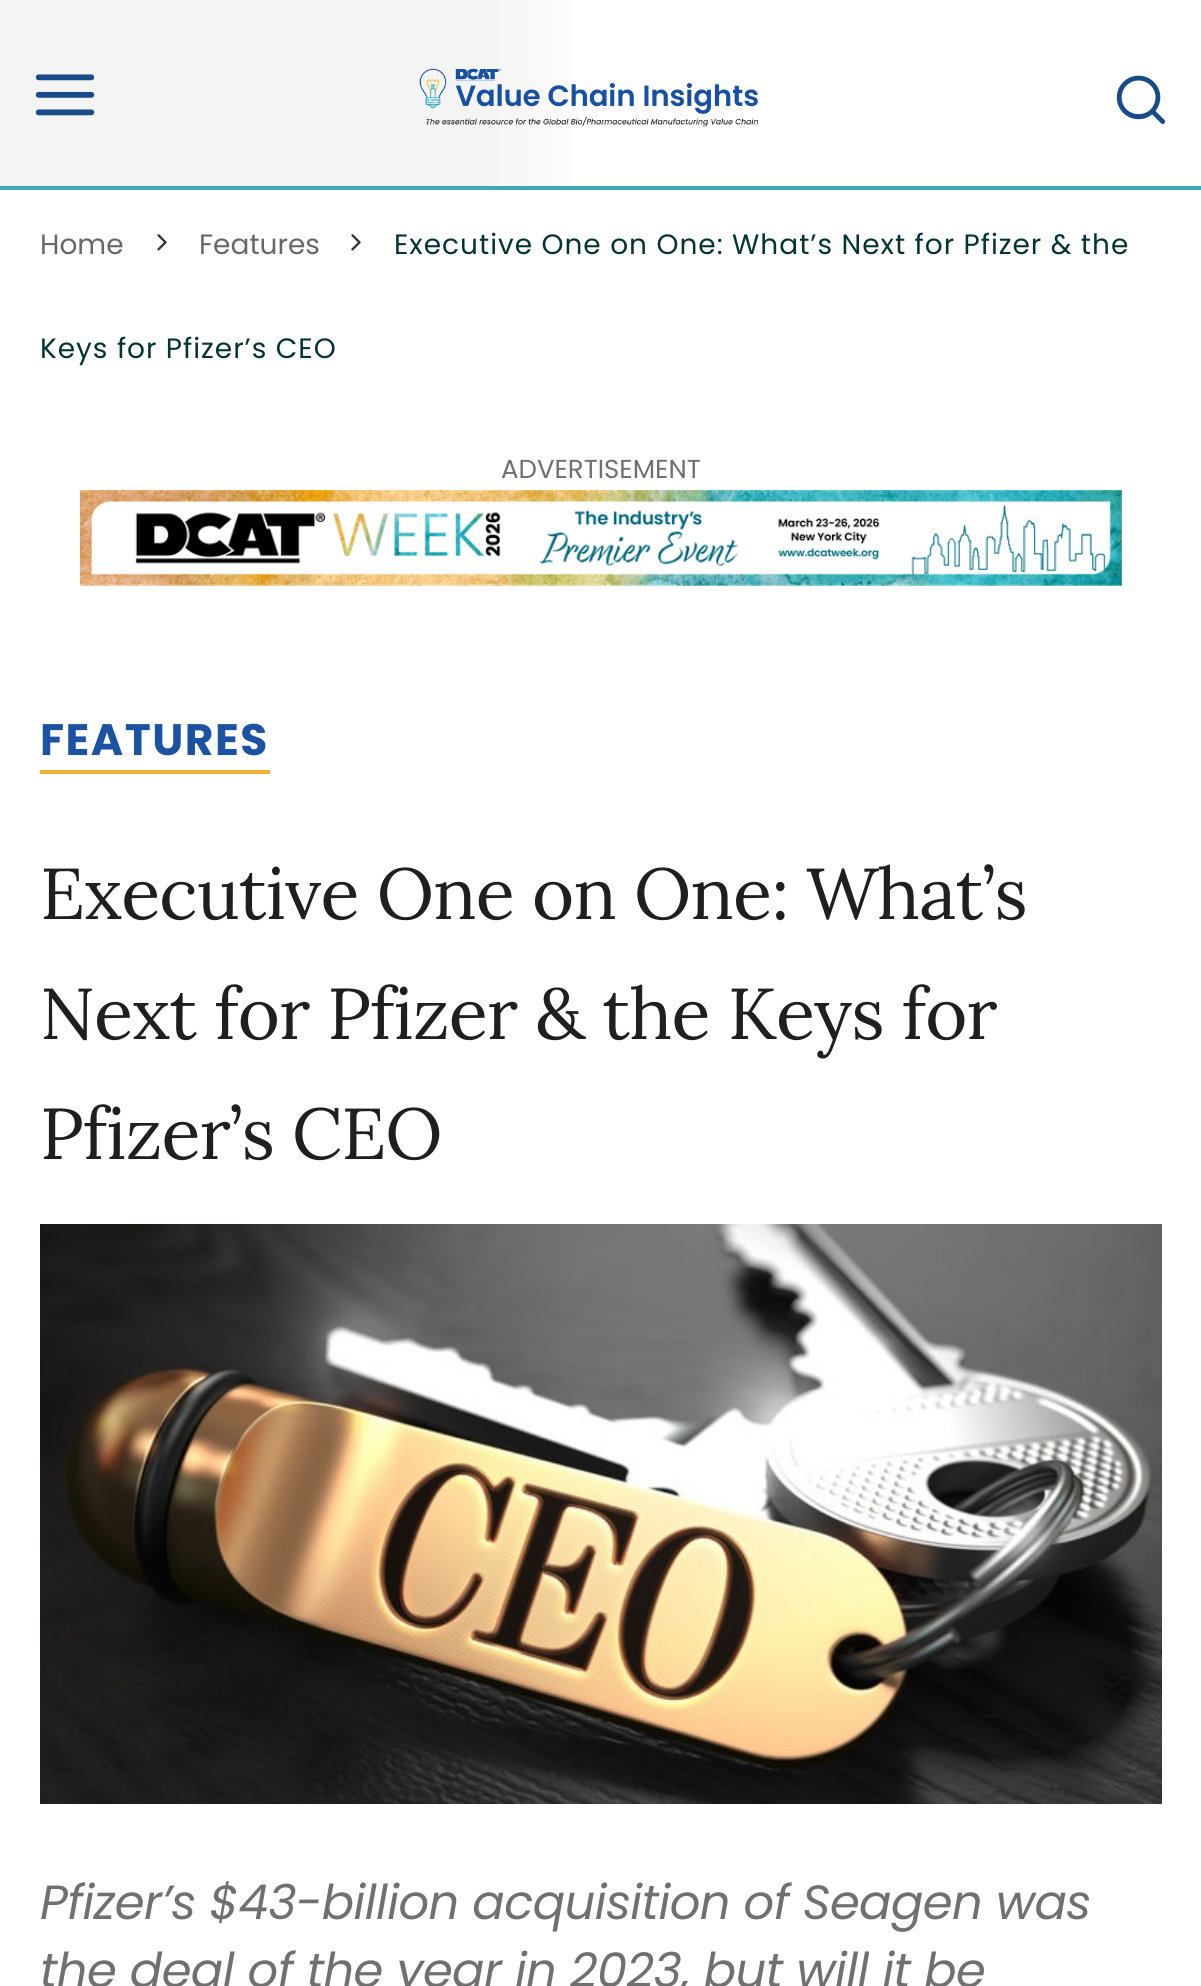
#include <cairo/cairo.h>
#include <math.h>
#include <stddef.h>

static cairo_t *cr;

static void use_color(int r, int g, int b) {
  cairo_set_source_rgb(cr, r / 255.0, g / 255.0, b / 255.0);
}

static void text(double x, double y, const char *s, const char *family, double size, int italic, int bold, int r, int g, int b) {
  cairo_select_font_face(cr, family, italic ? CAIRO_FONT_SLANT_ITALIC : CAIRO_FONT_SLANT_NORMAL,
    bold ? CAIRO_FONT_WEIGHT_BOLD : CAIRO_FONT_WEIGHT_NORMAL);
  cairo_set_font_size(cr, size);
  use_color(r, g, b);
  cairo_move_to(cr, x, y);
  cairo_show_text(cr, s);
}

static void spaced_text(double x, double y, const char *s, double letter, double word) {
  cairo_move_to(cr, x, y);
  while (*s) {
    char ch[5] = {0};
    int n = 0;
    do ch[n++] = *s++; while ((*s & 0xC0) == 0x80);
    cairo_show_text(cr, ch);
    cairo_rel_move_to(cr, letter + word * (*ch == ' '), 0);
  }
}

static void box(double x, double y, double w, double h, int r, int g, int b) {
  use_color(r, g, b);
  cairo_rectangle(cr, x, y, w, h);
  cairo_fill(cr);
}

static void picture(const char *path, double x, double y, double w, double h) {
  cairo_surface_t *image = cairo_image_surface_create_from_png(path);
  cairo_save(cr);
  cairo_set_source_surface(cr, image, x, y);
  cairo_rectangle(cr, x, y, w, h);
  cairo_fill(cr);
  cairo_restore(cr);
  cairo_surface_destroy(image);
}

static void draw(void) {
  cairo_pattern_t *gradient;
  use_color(255, 255, 255);
  cairo_paint(cr);
  gradient = cairo_pattern_create_linear(0, 95, 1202, 95);
  cairo_pattern_add_color_stop_rgba(gradient, 0.4, 0.957, 0.957, 0.957, 1);
  cairo_pattern_add_color_stop_rgba(gradient, 0.5, 1, 1, 1, 1);
  cairo_set_source(cr, gradient);
  cairo_pattern_destroy(gradient);
  cairo_rectangle(cr, 0, 0, 574, 186);
  cairo_fill(cr);
  box(0, 186, 1201, 4, 62, 168, 179);
  picture("img_01.png", 35, 74, 60, 42);
  picture("img_02.png", 419, 68, 339, 59);
  picture("img_03.png", 1116, 75, 50, 49);
  picture("img_04.png", 157, 234, 10, 17);
  picture("img_04.png", 351, 234, 10, 17);
  picture("img_05.png", 80, 490, 1042, 96);
  box(40, 770, 230, 4, 237, 177, 56);
  picture("img_06.png", 40, 1224, 1122, 580);
  text(40, 254, "Home", "Poppins", 28, 0, 0, 102, 103, 102);
  text(199, 254, "Features", "Poppins", 28, 0, 0, 102, 103, 102);
  use_color(3, 51, 51);
  spaced_text(394, 254, "Executive One on One: What’s Next for Pfizer & the", 0.98, 0);
  spaced_text(40, 358, "Keys for Pfizer’s CEO", 0.98, 0);
  text(501, 478, "ADVERTISEMENT", "Poppins", 26, 0, 0, 112, 112, 112);
  cairo_select_font_face(cr, "Poppins", CAIRO_FONT_SLANT_NORMAL, CAIRO_FONT_WEIGHT_BOLD);
  cairo_set_font_size(cr, 44);
  use_color(27, 82, 161);
  spaced_text(40, 755, "FEATURES", 1.5, 0);
  cairo_select_font_face(cr, "Lora", CAIRO_FONT_SLANT_NORMAL, CAIRO_FONT_WEIGHT_NORMAL);
  cairo_set_font_size(cr, 72);
  use_color(32, 31, 31);
  spaced_text(40, 919, "Executive One on One: What’s", -0.9, 0);
  spaced_text(40, 1039, "Next for Pfizer & the Keys for", -0.9, 0);
  spaced_text(40, 1159, "Pfizer’s CEO", -0.9, 0);
  cairo_select_font_face(cr, "Poppins", CAIRO_FONT_SLANT_ITALIC, CAIRO_FONT_WEIGHT_NORMAL);
  cairo_set_font_size(cr, 48);
  use_color(112, 112, 112);
  spaced_text(40, 1919, "Pfizer’s $43-billion acquisition of Seagen was", -0.6, 0);
  spaced_text(40, 1987, "the deal of the year in 2023, but will it be", -0.6, 0);
}

int main(void) {
  cairo_surface_t *surface = cairo_image_surface_create(CAIRO_FORMAT_RGB24, 1201, 1986);
  cr = cairo_create(surface);
  cairo_font_options_t *options = cairo_font_options_create();
  cairo_font_options_set_hint_metrics(options, CAIRO_HINT_METRICS_OFF);
  cairo_font_options_set_hint_style(options, CAIRO_HINT_STYLE_NONE);
  cairo_set_font_options(cr, options);
  cairo_set_miter_limit(cr, 4);
  draw();
  cairo_surface_write_to_png(surface, "out.png");
  cairo_font_options_destroy(options);
  cairo_destroy(cr);
  cairo_surface_destroy(surface);
  return 0;
}
